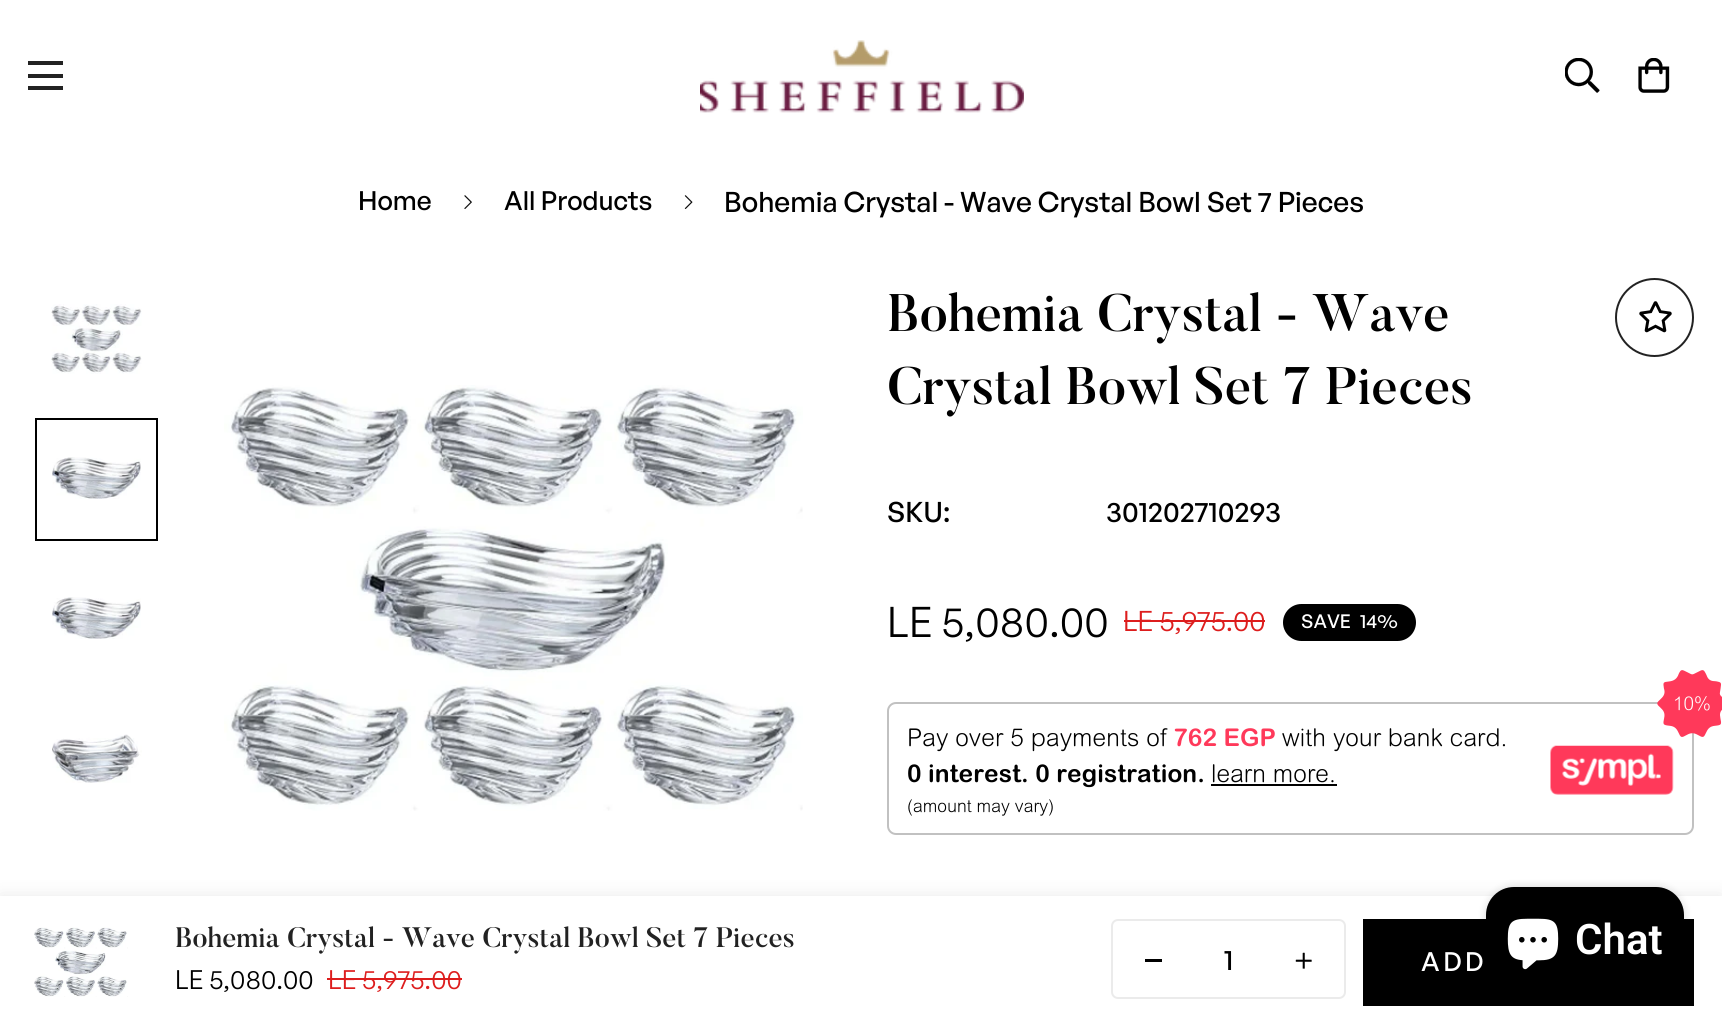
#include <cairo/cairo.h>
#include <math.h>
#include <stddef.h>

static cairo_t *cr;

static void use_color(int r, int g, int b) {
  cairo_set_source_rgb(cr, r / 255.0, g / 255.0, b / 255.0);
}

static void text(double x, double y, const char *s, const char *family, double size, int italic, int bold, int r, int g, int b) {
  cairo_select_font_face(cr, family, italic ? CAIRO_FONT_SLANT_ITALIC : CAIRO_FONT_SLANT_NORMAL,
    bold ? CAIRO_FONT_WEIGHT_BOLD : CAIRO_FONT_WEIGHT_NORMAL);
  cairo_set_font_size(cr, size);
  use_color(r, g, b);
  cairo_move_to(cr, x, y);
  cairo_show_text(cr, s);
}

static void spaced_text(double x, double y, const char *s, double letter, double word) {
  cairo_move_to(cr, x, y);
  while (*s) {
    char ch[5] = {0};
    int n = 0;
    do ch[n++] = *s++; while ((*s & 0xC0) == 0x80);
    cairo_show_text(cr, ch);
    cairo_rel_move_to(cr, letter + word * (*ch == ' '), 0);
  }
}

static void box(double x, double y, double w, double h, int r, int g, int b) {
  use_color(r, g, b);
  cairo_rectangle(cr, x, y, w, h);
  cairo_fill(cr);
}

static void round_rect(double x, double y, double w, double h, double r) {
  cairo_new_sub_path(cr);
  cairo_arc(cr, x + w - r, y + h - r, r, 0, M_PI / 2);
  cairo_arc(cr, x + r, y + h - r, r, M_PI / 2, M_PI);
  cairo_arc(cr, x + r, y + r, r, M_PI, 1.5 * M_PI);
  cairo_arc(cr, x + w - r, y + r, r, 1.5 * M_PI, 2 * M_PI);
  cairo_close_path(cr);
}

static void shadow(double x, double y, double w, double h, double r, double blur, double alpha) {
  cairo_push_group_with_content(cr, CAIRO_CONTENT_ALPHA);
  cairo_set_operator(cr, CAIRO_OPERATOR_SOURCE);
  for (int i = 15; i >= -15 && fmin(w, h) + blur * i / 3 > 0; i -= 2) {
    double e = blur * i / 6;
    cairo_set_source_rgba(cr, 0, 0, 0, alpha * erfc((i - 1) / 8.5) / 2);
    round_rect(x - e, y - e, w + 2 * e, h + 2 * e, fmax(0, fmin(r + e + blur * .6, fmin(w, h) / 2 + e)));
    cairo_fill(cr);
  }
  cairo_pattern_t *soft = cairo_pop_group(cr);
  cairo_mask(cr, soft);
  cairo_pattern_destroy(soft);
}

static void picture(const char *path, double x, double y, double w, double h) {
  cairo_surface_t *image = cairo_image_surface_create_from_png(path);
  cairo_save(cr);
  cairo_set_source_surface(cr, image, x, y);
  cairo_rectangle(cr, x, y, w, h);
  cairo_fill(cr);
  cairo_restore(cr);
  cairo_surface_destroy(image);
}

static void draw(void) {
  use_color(255, 255, 255);
  cairo_paint(cr);
  box(28, 74, 35, 4, 34, 34, 34);
  box(28, 61, 35, 4, 34, 34, 34);
  box(28, 86, 35, 4, 34, 34, 34);
  picture("img_01.png", 700, 40, 324, 73);
  picture("img_02.png", 1565, 58, 35, 35);
  picture("img_03.png", 1638, 58, 32, 35);
  picture("img_04.png", 464, 195, 8, 14);
  picture("img_05.png", 684, 195, 9, 14);
  picture("img_06.png", 51, 304, 91, 70);
  cairo_rectangle(cr, 36, 419, 121, 121);
  use_color(0, 0, 0);
  cairo_stroke(cr);
  picture("img_07.png", 52, 457, 89, 42);
  picture("img_08.png", 52, 597, 89, 42);
  picture("img_09.png", 52, 734, 90, 49);
  picture("img_10.png", 224, 385, 579, 426);
  cairo_arc(cr, 1654.5, 317.5, 38.5, 0, 2 * M_PI);
  use_color(34, 34, 34);
  cairo_stroke(cr);
  picture("img_11.png", 1639, 301, 33, 32);
  box(1124, 620, 141, 2, 221, 29, 29);
  use_color(0, 0, 0);
  round_rect(1283, 604, 133, 37, 18.5);
  cairo_fill(cr);
  round_rect(888, 703, 805, 131, 8);
  use_color(193, 193, 193);
  cairo_stroke(cr);
  picture("img_12.png", 1657, 670, 65, 67);
  box(1211, 784, 126, 2, 0, 0, 0);
  picture("img_13.png", 1550, 745, 124, 50);
  use_color(0, 0, 0);
  shadow(0, 896, 1722, 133, 0, 9, 0.09);
  box(0, 896, 1722, 132, 255, 255, 255);
  picture("img_14.png", 34, 927, 94, 70);
  box(327, 978, 135, 2, 221, 29, 29);
  round_rect(1112, 920, 233, 78, 6);
  use_color(235, 235, 235);
  cairo_stroke(cr);
  box(1145, 959, 17, 3, 0, 0, 0);
  picture("img_15.png", 1295, 952, 17, 17);
  box(1363, 919, 331, 87, 0, 0, 0);
  use_color(0, 0, 0);
  shadow(1486, 887, 198, 105, 28, 4.5, 0.15);
  use_color(0, 0, 0);
  round_rect(1486, 887, 198, 105, 28);
  cairo_fill(cr);
  picture("img_16.png", 1507, 918, 52, 52);
  text(358, 210, "Home", "General Sans Medium", 26.25, 0, 0, 0, 0, 0);
  text(504, 210, "All Products", "General Sans Medium", 26.25, 0, 0, 0, 0, 0);
  text(724, 212, "Bohemia Crystal - Wave Crystal Bowl Set 7 Pieces", "General Sans Medium", 28, 0, 0, 0, 0, 0);
  text(887, 331, "Bohemia Crystal - Wave", "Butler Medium", 52.5, 0, 0, 0, 0, 0);
  text(887, 404, "Crystal Bowl Set 7 Pieces", "Butler Medium", 52.5, 0, 0, 0, 0, 0);
  text(887, 522, "SKU:", "General Sans Medium", 28, 0, 0, 0, 0, 0);
  text(1106, 522, "301202710293", "General Sans Medium", 28, 0, 0, 0, 0, 0);
  text(887, 637, "LE 5,080.00", "General Sans", 42, 0, 0, 0, 0, 0);
  text(1123, 631, "LE 5,975.00", "General Sans", 28, 0, 0, 221, 29, 29);
  text(1301, 628, "SAVE", "General Sans Medium", 19, 0, 0, 255, 255, 255);
  text(1360, 628, "14%", "General Sans Medium", 19, 0, 0, 255, 255, 255);
  text(1673, 710, "10%", "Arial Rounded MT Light", 19, 0, 0, 255, 255, 255);
  cairo_set_font_size(cr, 24.5);
  use_color(0, 0, 0);
  spaced_text(907, 746, "Pay over 5 payments of", 0.15, 0);
  cairo_select_font_face(cr, "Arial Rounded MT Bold", CAIRO_FONT_SLANT_NORMAL, CAIRO_FONT_WEIGHT_BOLD);
  use_color(255, 57, 90);
  spaced_text(1173, 746, "762 EGP", 0.15, 0);
  cairo_select_font_face(cr, "Arial Rounded MT Light", CAIRO_FONT_SLANT_NORMAL, CAIRO_FONT_WEIGHT_NORMAL);
  use_color(0, 0, 0);
  spaced_text(1282, 746, "with your bank card.", 0.15, 0);
  cairo_select_font_face(cr, "Arial Rounded MT Bold", CAIRO_FONT_SLANT_NORMAL, CAIRO_FONT_WEIGHT_BOLD);
  spaced_text(907, 782, "0 interest. 0 registration.", 0.15, 0);
  cairo_select_font_face(cr, "Arial Rounded MT Light", CAIRO_FONT_SLANT_NORMAL, CAIRO_FONT_WEIGHT_NORMAL);
  spaced_text(1211, 782, "learn more.", 0.15, 0);
  cairo_set_font_size(cr, 17.5);
  spaced_text(907, 812, "(amount may vary)", 0.1, 0);
  text(175, 947, "Bohemia Crystal - Wave Crystal Bowl Set 7 Pieces", "Butler Medium", 28, 0, 0, 34, 34, 34);
  text(175, 989, "LE 5,080.00", "General Sans", 26.25, 0, 0, 0, 0, 0);
  text(328, 989, "LE 5,975.00", "General Sans", 26.25, 0, 0, 221, 29, 29);
  text(1224, 970, "1", "General Sans Medium", 28, 0, 0, 0, 0, 0);
  cairo_set_font_size(cr, 26.25);
  use_color(255, 255, 255);
  spaced_text(1421, 971, "ADD", 3.5, 0);
  cairo_new_path(cr);
  cairo_move_to(cr, 805, 516);
  cairo_curve_to(cr, 805, 528, 808, 540, 815, 549);
  cairo_curve_to(cr, 846, 596, 919, 572, 917, 516);
  cairo_curve_to(cr, 916, 546, 891, 570, 861, 570);
  cairo_curve_to(cr, 831, 570, 806, 546, 805, 516);
  cairo_close_path(cr);
  cairo_fill(cr);
  text(1575, 954, "Chat", "Roboto SemiBold", 42, 0, 0, 255, 255, 255);
}

int main(void) {
  cairo_surface_t *surface = cairo_image_surface_create(CAIRO_FORMAT_RGB24, 1722, 1028);
  cr = cairo_create(surface);
  cairo_font_options_t *options = cairo_font_options_create();
  cairo_font_options_set_hint_metrics(options, CAIRO_HINT_METRICS_OFF);
  cairo_font_options_set_hint_style(options, CAIRO_HINT_STYLE_NONE);
  cairo_set_font_options(cr, options);
  cairo_set_miter_limit(cr, 4);
  draw();
  cairo_surface_write_to_png(surface, "out.png");
  cairo_font_options_destroy(options);
  cairo_destroy(cr);
  cairo_surface_destroy(surface);
  return 0;
}
